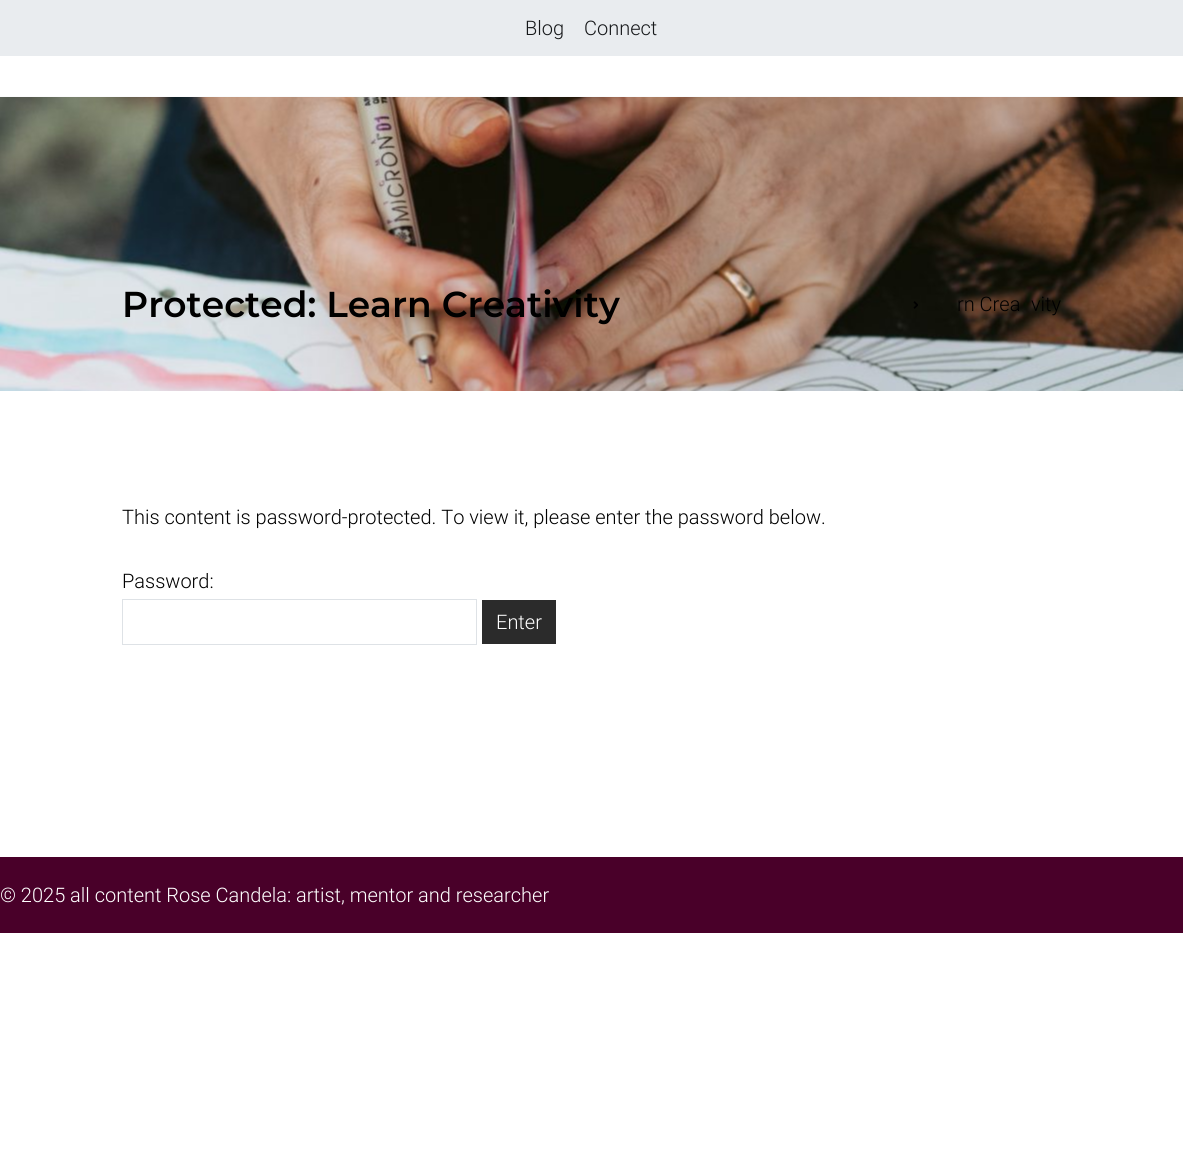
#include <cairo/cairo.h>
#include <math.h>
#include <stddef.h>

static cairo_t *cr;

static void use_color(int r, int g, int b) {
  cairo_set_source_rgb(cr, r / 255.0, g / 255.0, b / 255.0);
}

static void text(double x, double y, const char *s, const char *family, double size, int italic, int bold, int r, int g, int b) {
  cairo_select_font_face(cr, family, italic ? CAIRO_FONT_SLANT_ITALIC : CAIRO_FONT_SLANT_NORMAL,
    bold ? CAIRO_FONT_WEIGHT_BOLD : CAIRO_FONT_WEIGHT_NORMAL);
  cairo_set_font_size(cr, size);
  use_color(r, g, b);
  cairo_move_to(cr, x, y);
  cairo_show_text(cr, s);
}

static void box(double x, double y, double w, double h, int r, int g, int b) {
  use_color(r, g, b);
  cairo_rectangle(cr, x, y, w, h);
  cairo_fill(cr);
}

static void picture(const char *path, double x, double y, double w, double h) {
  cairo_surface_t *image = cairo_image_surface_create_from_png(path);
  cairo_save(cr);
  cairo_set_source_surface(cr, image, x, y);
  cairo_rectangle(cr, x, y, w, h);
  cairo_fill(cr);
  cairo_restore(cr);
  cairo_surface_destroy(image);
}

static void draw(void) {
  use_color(255, 255, 255);
  cairo_paint(cr);
  box(0, 96, 1183, 1, 251, 251, 252);
  box(0, 0, 1183, 56, 233, 236, 239);
  picture("img_01.png", 0, 97, 1183, 294);
  picture("img_02.png", 913, 301, 5, 8);
  cairo_rectangle(cr, 122.5, 599.5, 354, 45);
  use_color(222, 226, 230);
  cairo_set_line_width(cr, 1);
  cairo_stroke(cr);
  box(482, 600, 74, 44, 43, 43, 43);
  box(0, 857, 1183, 76, 73, 0, 41);
  text(525, 35, "Blog", "Roboto Light", 20, 0, 0, 22, 24, 26);
  text(584, 35, "Connect", "Roboto Light", 20, 0, 0, 22, 24, 26);
  text(122, 317, "Protected: Learn Creativity", "Montserrat SemiBold", 36, 0, 0, 0, 0, 0);
  text(957, 311, "rn Crea", "Roboto Light", 20, 0, 0, 0, 0, 0);
  text(1031, 311, "vity", "Roboto Light", 20, 0, 0, 0, 0, 0);
  text(122, 524, "This content is password-protected. To view it, please enter the password below.", "Roboto Light", 20, 0, 0, 0, 0, 0);
  text(122, 588, "Password:", "Roboto Light", 20, 0, 0, 0, 0, 0);
  text(496, 629, "Enter", "Roboto Light", 20, 0, 0, 255, 255, 255);
  text(0, 902, "© 2025 all content Rose Candela: artist, mentor and researcher", "Roboto Light", 20, 0, 0, 255, 255, 255);
}

int main(void) {
  cairo_surface_t *surface = cairo_image_surface_create(CAIRO_FORMAT_RGB24, 1183, 1174);
  cr = cairo_create(surface);
  cairo_font_options_t *options = cairo_font_options_create();
  cairo_font_options_set_hint_metrics(options, CAIRO_HINT_METRICS_OFF);
  cairo_font_options_set_hint_style(options, CAIRO_HINT_STYLE_NONE);
  cairo_set_font_options(cr, options);
  cairo_set_miter_limit(cr, 4);
  draw();
  cairo_surface_write_to_png(surface, "out.png");
  cairo_font_options_destroy(options);
  cairo_destroy(cr);
  cairo_surface_destroy(surface);
  return 0;
}
